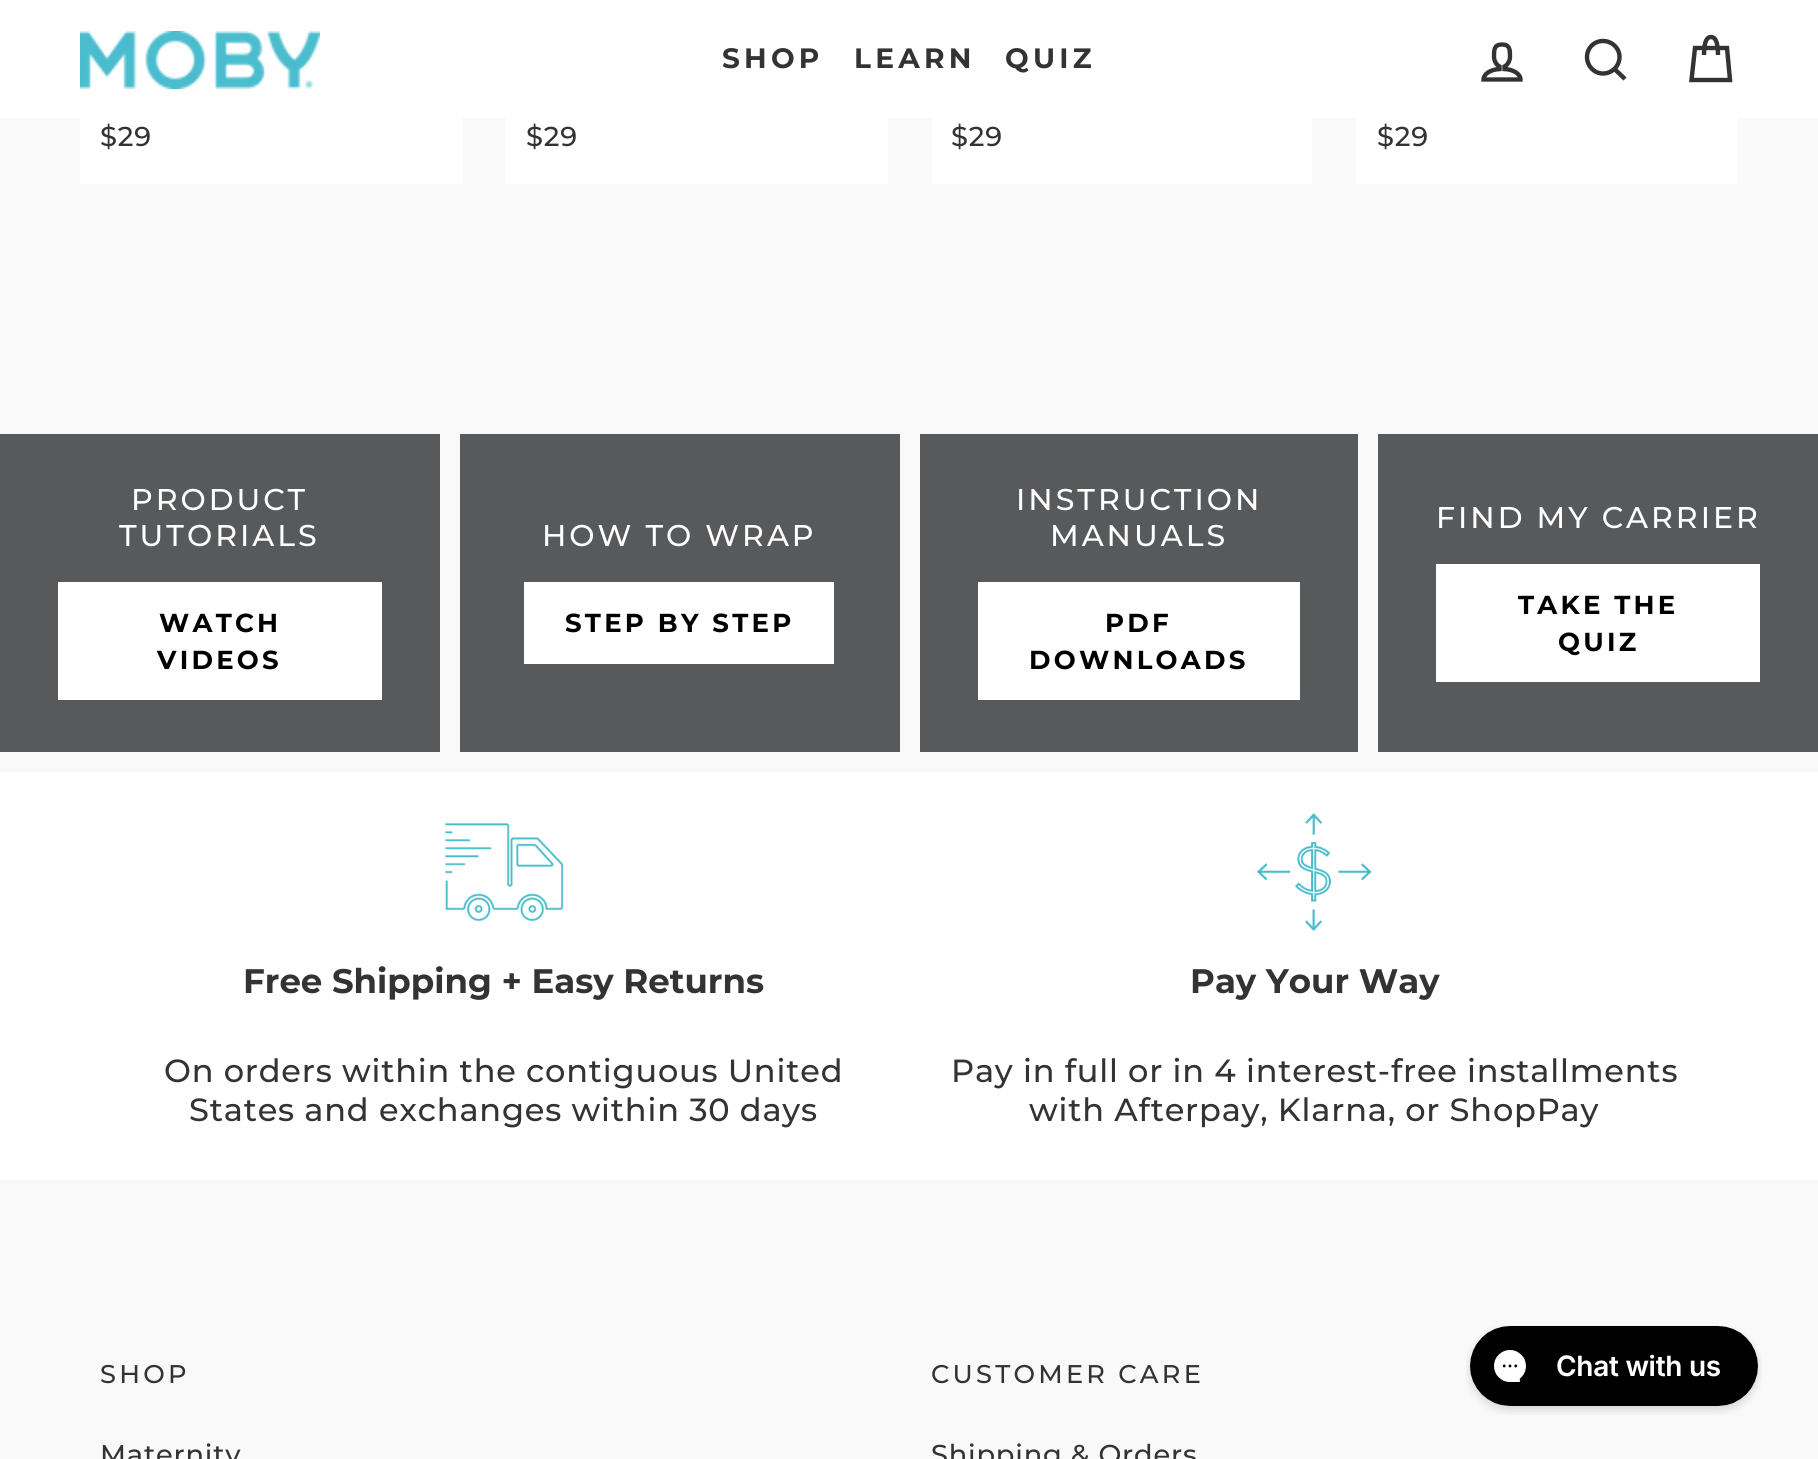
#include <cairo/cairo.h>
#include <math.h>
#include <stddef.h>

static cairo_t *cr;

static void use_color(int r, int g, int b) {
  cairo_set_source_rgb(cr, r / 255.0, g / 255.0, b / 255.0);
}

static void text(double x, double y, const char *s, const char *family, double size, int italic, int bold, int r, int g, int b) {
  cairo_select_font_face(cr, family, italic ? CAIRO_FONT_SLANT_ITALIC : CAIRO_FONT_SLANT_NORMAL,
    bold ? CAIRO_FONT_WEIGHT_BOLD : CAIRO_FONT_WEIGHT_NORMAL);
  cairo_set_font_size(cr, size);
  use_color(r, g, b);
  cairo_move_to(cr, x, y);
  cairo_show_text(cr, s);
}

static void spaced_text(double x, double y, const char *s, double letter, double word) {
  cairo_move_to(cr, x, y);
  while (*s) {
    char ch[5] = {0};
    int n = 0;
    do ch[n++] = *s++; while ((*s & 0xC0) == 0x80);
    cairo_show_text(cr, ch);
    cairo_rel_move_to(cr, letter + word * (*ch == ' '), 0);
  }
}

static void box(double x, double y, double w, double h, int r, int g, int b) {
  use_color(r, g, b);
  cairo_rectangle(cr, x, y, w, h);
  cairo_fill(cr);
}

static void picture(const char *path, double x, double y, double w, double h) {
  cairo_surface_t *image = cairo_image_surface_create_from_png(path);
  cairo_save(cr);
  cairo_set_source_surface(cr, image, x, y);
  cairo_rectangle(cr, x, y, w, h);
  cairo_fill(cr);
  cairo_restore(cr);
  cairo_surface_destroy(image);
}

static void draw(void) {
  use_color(249, 249, 249);
  cairo_paint(cr);
  box(0, 0, 1818, 118, 255, 255, 255);
  picture("img_01.png", 80, 31, 240, 58);
  cairo_new_path(cr);
  cairo_move_to(cr, 1504.5, 69);
  cairo_line_to(cr, 1504.5, 66.5);
  cairo_curve_to(cr, 1507.5, 65, 1510, 61, 1510, 56.5);
  cairo_curve_to(cr, 1510, 50, 1510, 44.5, 1502, 44.5);
  cairo_curve_to(cr, 1494, 44.5, 1494, 50, 1494, 56.5);
  cairo_curve_to(cr, 1494, 61, 1496.5, 65, 1499.5, 66.5);
  cairo_line_to(cr, 1499.5, 69);
  cairo_curve_to(cr, 1490.5, 69.5, 1483.5, 74, 1483.5, 79.5);
  cairo_line_to(cr, 1520.5, 79.5);
  cairo_curve_to(cr, 1520.5, 74, 1513.5, 69.5, 1504.5, 69);
  cairo_close_path(cr);
  use_color(51, 51, 51);
  cairo_set_line_width(cr, 4.4);
  cairo_stroke(cr);
  cairo_new_path(cr);
  cairo_move_to(cr, 1619.5, 57);
  cairo_curve_to(cr, 1619.5, 66, 1612, 73.5, 1603, 73.5);
  cairo_curve_to(cr, 1594, 73.5, 1587, 66, 1587, 57);
  cairo_curve_to(cr, 1587, 48, 1594, 41, 1603, 41);
  cairo_curve_to(cr, 1612, 41, 1619.5, 48, 1619.5, 57);
  cairo_close_path(cr);
  cairo_move_to(cr, 1625, 79);
  cairo_line_to(cr, 1614.5, 69);
  cairo_stroke(cr);
  cairo_new_path(cr);
  cairo_move_to(cr, 1704, 55);
  cairo_curve_to(cr, 1704, 41, 1707, 37, 1711, 37);
  cairo_curve_to(cr, 1715, 37, 1718, 41, 1718, 55);
  cairo_move_to(cr, 1695, 48);
  cairo_line_to(cr, 1727, 48);
  cairo_line_to(cr, 1730, 80);
  cairo_line_to(cr, 1691.5, 80);
  cairo_close_path(cr);
  cairo_stroke(cr);
  box(80, 118, 382, 66, 255, 255, 255);
  box(506, 118, 382, 66, 255, 255, 255);
  box(932, 118, 380, 66, 255, 255, 255);
  box(1356, 118, 382, 66, 255, 255, 255);
  box(0, 434, 440, 318, 88, 89, 91);
  box(58, 582, 324, 118, 255, 255, 255);
  box(460, 434, 440, 318, 88, 89, 91);
  box(524, 582, 310, 82, 255, 255, 255);
  box(920, 434, 438, 318, 88, 89, 91);
  box(978, 582, 322, 118, 255, 255, 255);
  box(1378, 434, 440, 318, 88, 89, 91);
  box(1436, 564, 324, 118, 255, 255, 255);
  box(0, 772, 1818, 408, 255, 255, 255);
  picture("img_02.png", 445, 823, 119, 99);
  picture("img_03.png", 1257, 813, 115, 118);
  picture("img_04.png", 1466, 1325, 296, 90);
  cairo_select_font_face(cr, "Montserrat", CAIRO_FONT_SLANT_NORMAL, CAIRO_FONT_WEIGHT_BOLD);
  cairo_set_font_size(cr, 28);
  use_color(51, 51, 51);
  spaced_text(722, 68, "SHOP", 4.25, 0);
  spaced_text(854, 68, "LEARN", 4.25, 0);
  spaced_text(1005, 68, "QUIZ", 4.25, 0);
  cairo_select_font_face(cr, "Montserrat Medium", CAIRO_FONT_SLANT_NORMAL, CAIRO_FONT_WEIGHT_NORMAL);
  cairo_set_font_size(cr, 27.25);
  spaced_text(100, 146, "$29", 0.8, 0);
  spaced_text(526, 146, "$29", 0.8, 0);
  spaced_text(951, 146, "$29", 0.8, 0);
  spaced_text(1377, 146, "$29", 0.8, 0);
  cairo_set_font_size(cr, 30);
  use_color(255, 255, 255);
  spaced_text(131, 510, "PRODUCT", 3, 0);
  spaced_text(119, 546, "TUTORIALS", 3, 0);
  cairo_select_font_face(cr, "Montserrat", CAIRO_FONT_SLANT_NORMAL, CAIRO_FONT_WEIGHT_BOLD);
  cairo_set_font_size(cr, 26);
  use_color(0, 0, 0);
  spaced_text(159, 632, "WATCH", 3.25, 0);
  spaced_text(157, 669, "VIDEOS", 3.25, 0);
  cairo_select_font_face(cr, "Montserrat Medium", CAIRO_FONT_SLANT_NORMAL, CAIRO_FONT_WEIGHT_NORMAL);
  cairo_set_font_size(cr, 30);
  use_color(255, 255, 255);
  spaced_text(542, 546, "HOW TO WRAP", 3, 0);
  cairo_select_font_face(cr, "Montserrat", CAIRO_FONT_SLANT_NORMAL, CAIRO_FONT_WEIGHT_BOLD);
  cairo_set_font_size(cr, 26);
  use_color(0, 0, 0);
  spaced_text(565, 632, "STEP BY STEP", 3.25, 0);
  cairo_select_font_face(cr, "Montserrat Medium", CAIRO_FONT_SLANT_NORMAL, CAIRO_FONT_WEIGHT_NORMAL);
  cairo_set_font_size(cr, 30);
  use_color(255, 255, 255);
  spaced_text(1016, 510, "INSTRUCTION", 3, 0);
  spaced_text(1050, 546, "MANUALS", 3, 0);
  cairo_select_font_face(cr, "Montserrat", CAIRO_FONT_SLANT_NORMAL, CAIRO_FONT_WEIGHT_BOLD);
  cairo_set_font_size(cr, 26);
  use_color(0, 0, 0);
  spaced_text(1105, 632, "PDF", 3.25, 0);
  spaced_text(1029, 669, "DOWNLOADS", 3.25, 0);
  cairo_select_font_face(cr, "Montserrat Medium", CAIRO_FONT_SLANT_NORMAL, CAIRO_FONT_WEIGHT_NORMAL);
  cairo_set_font_size(cr, 30);
  use_color(255, 255, 255);
  spaced_text(1436, 528, "FIND MY CARRIER", 3, 0);
  cairo_select_font_face(cr, "Montserrat", CAIRO_FONT_SLANT_NORMAL, CAIRO_FONT_WEIGHT_BOLD);
  cairo_set_font_size(cr, 26);
  use_color(0, 0, 0);
  spaced_text(1518, 614, "TAKE THE", 3.25, 0);
  spaced_text(1558, 651, "QUIZ", 3.25, 0);
  text(243, 993, "Free Shipping + Easy Returns", "Montserrat", 34, 0, 1, 51, 51, 51);
  cairo_select_font_face(cr, "Montserrat Medium", CAIRO_FONT_SLANT_NORMAL, CAIRO_FONT_WEIGHT_NORMAL);
  cairo_set_font_size(cr, 32);
  spaced_text(164, 1082, "On orders within the contiguous United", 0.8, 0);
  spaced_text(189, 1121, "States and exchanges within 30 days", 0.8, 0);
  text(1190, 993, "Pay Your Way", "Montserrat", 34, 0, 1, 51, 51, 51);
  cairo_select_font_face(cr, "Montserrat Medium", CAIRO_FONT_SLANT_NORMAL, CAIRO_FONT_WEIGHT_NORMAL);
  cairo_set_font_size(cr, 32);
  spaced_text(951, 1082, "Pay in full or in 4 interest-free installments", 0.8, 0);
  spaced_text(1029, 1121, "with Afterpay, Klarna, or ShopPay", 0.8, 0);
  cairo_set_font_size(cr, 25.6);
  spaced_text(100, 1383, "SHOP", 3.25, 0);
  cairo_set_font_size(cr, 27.25);
  spaced_text(100, 1464, "Maternity", 0.8, 0);
  cairo_set_font_size(cr, 25.6);
  spaced_text(931, 1383, "CUSTOMER CARE", 3.25, 0);
  cairo_set_font_size(cr, 27.25);
  spaced_text(931, 1464, "Shipping & Orders", 0.8, 0);
}

int main(void) {
  cairo_surface_t *surface = cairo_image_surface_create(CAIRO_FORMAT_RGB24, 1818, 1459);
  cr = cairo_create(surface);
  cairo_font_options_t *options = cairo_font_options_create();
  cairo_font_options_set_hint_metrics(options, CAIRO_HINT_METRICS_OFF);
  cairo_font_options_set_hint_style(options, CAIRO_HINT_STYLE_NONE);
  cairo_set_font_options(cr, options);
  cairo_set_miter_limit(cr, 4);
  draw();
  cairo_surface_write_to_png(surface, "out.png");
  cairo_font_options_destroy(options);
  cairo_destroy(cr);
  cairo_surface_destroy(surface);
  return 0;
}
